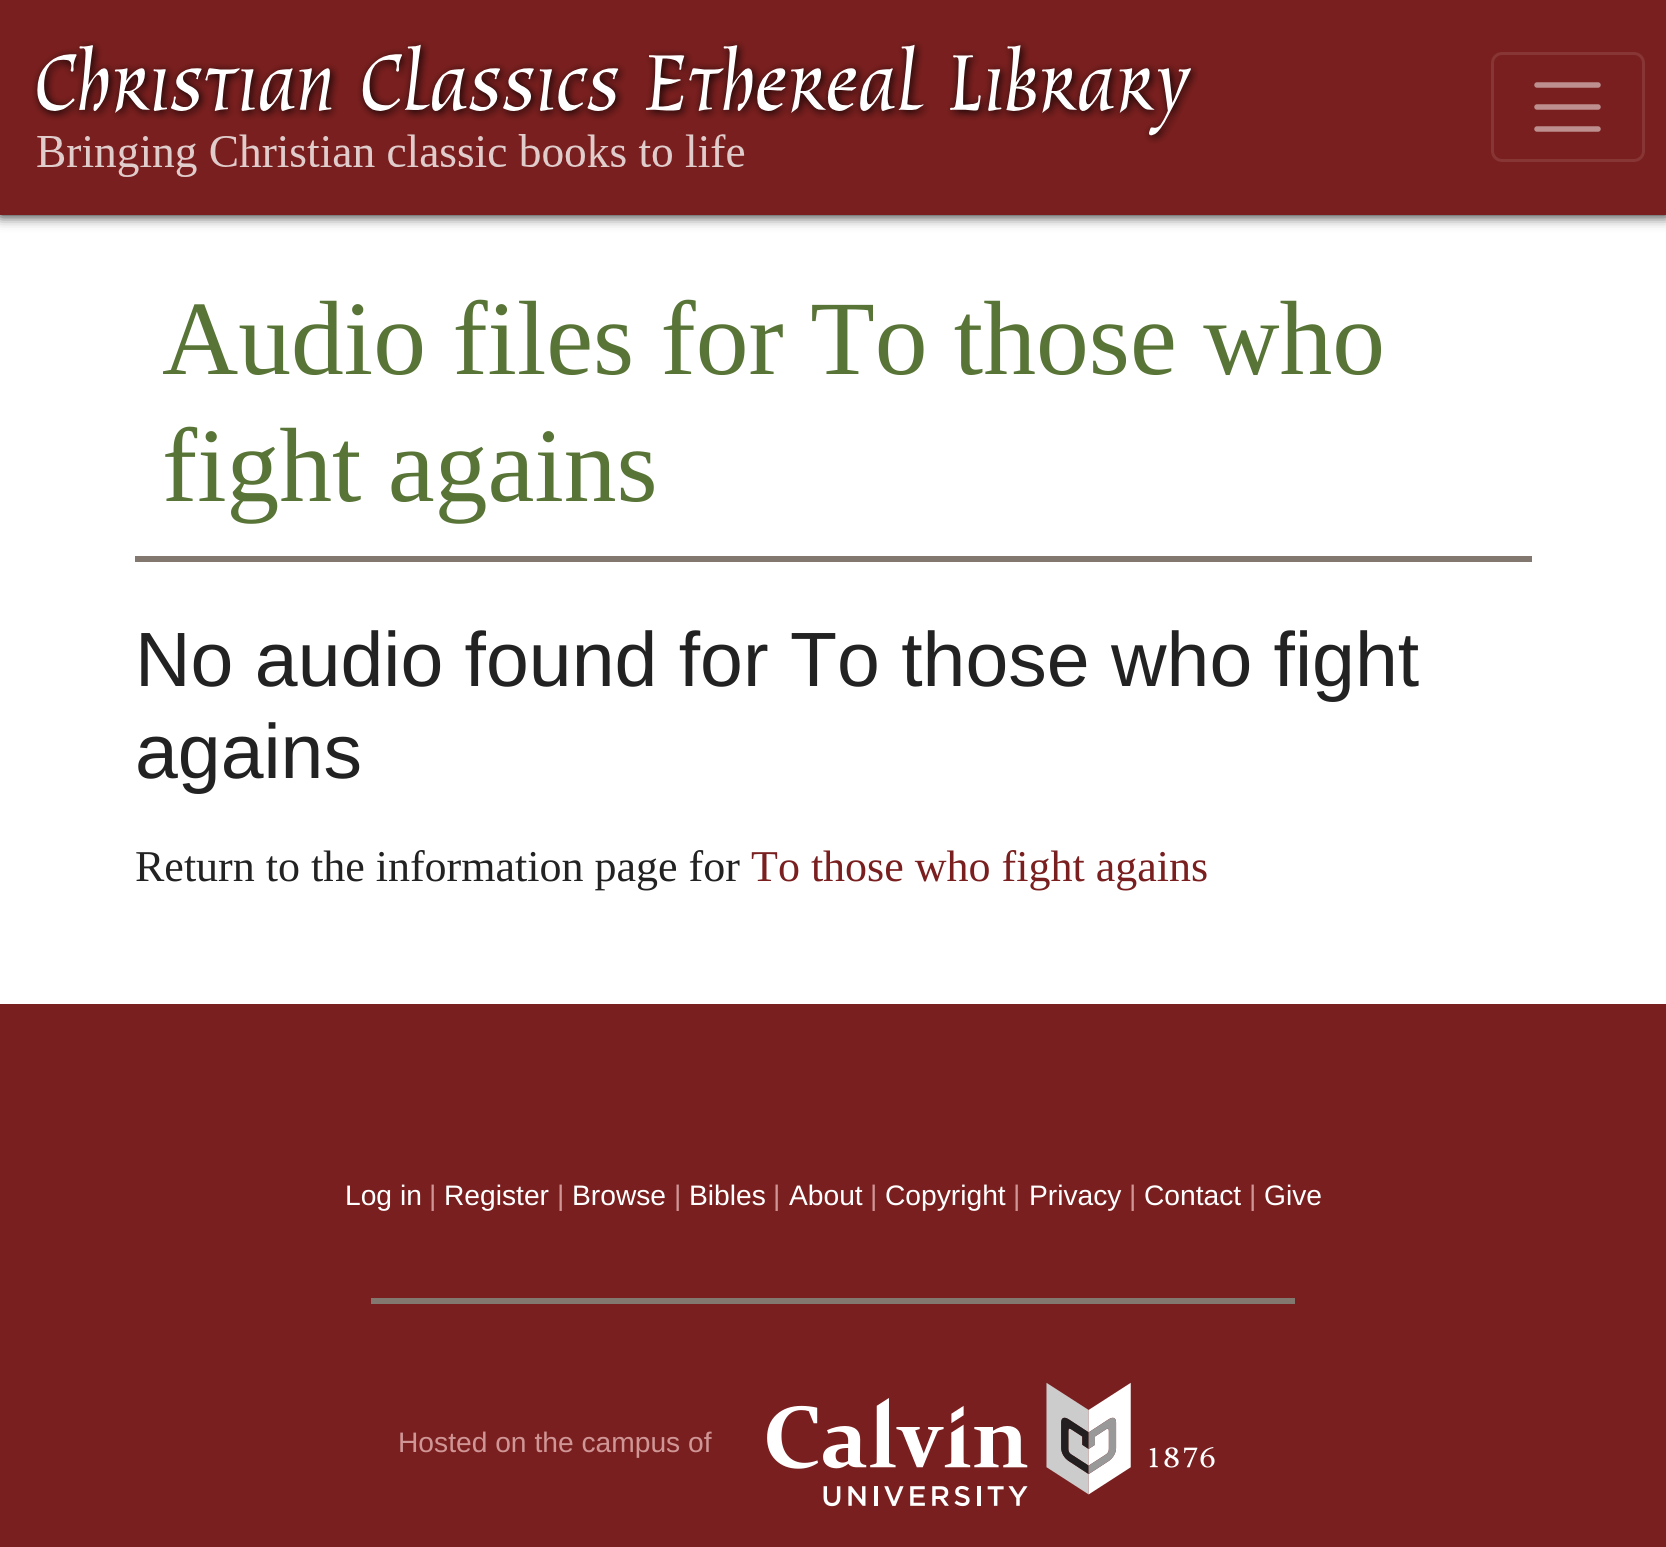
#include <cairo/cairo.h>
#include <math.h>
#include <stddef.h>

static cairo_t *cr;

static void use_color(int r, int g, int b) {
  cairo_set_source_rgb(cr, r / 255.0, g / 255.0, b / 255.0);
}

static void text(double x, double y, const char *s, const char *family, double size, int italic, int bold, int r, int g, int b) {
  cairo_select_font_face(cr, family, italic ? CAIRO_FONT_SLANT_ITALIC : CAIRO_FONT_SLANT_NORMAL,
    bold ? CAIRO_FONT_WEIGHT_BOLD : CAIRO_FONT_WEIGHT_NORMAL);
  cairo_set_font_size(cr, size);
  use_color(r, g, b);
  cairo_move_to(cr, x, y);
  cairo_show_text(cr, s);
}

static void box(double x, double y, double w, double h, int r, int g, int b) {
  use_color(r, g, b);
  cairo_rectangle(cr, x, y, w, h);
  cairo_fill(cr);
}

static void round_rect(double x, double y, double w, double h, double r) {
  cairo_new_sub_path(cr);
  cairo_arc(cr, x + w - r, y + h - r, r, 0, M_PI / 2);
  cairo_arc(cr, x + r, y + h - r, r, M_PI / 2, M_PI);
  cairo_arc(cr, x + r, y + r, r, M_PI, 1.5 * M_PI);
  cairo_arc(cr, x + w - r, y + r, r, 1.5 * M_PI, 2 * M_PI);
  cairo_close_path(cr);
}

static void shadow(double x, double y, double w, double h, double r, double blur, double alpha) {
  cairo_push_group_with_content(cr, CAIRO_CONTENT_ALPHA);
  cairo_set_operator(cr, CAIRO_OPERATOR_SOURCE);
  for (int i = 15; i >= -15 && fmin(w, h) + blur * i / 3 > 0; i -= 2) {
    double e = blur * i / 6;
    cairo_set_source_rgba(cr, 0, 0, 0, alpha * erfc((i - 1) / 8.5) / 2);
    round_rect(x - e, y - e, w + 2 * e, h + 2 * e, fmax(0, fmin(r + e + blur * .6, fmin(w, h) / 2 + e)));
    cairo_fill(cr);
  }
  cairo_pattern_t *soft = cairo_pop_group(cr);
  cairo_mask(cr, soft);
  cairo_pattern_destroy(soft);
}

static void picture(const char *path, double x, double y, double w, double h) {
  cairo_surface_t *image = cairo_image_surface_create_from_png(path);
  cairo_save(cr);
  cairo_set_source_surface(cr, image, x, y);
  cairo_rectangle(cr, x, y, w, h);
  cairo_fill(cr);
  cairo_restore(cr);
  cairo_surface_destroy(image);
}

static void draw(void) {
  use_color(255, 255, 255);
  cairo_paint(cr);
  use_color(0, 0, 0);
  shadow(0, 0, 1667, 215, 0, 7, 1);
  box(0, 0, 1666, 215, 122, 31, 31);
  picture("img_01.png", 32, 41, 1166, 136);
  round_rect(1492.5, 53.5, 151, 107, 9.5);
  use_color(135, 53, 53);
  cairo_set_line_width(cr, 3);
  cairo_stroke(cr);
  cairo_new_path(cr);
  cairo_move_to(cr, 1537, 85);
  cairo_line_to(cr, 1598, 85);
  cairo_move_to(cr, 1537, 107);
  cairo_line_to(cr, 1598, 107);
  cairo_move_to(cr, 1537, 129);
  cairo_line_to(cr, 1598, 129);
  use_color(189, 143, 143);
  cairo_set_line_width(cr, 5.5);
  cairo_set_line_cap(cr, CAIRO_LINE_CAP_ROUND);
  cairo_stroke(cr);
  box(135, 556, 1397, 6, 131, 120, 111);
  box(0, 1004, 1666, 543, 122, 31, 31);
  box(371, 1298, 924, 6, 131, 120, 111);
  picture("img_02.png", 767, 1382, 448, 125);
  text(162, 374, "Audio files for To those who", "Liberation Serif", 105.6, 0, 0, 88, 116, 54);
  text(162, 501, "fight agains", "Liberation Serif", 105.6, 0, 0, 88, 116, 54);
  text(135, 686, "No audio found for To those who fight", "Liberation Sans", 77, 0, 0, 34, 34, 34);
  text(135, 778, "agains", "Liberation Sans", 77, 0, 0, 34, 34, 34);
  text(135, 881, "Return to the information page for", "Liberation Serif", 44, 0, 0, 34, 34, 34);
  text(751, 881, "To those who fight agains", "Liberation Serif", 44, 0, 0, 122, 31, 31);
  text(345, 1205, "Log in", "Liberation Sans", 28.2, 0, 0, 255, 255, 255);
  text(429, 1205, "|", "Liberation Sans", 28.2, 0, 0, 208, 149, 149);
  text(444, 1205, "Register", "Liberation Sans", 28.2, 0, 0, 255, 255, 255);
  text(557, 1205, "|", "Liberation Sans", 28.2, 0, 0, 208, 149, 149);
  text(572, 1205, "Browse", "Liberation Sans", 28.2, 0, 0, 255, 255, 255);
  text(674, 1205, "|", "Liberation Sans", 28.2, 0, 0, 208, 149, 149);
  text(689, 1205, "Bibles", "Liberation Sans", 28.2, 0, 0, 255, 255, 255);
  text(773, 1205, "|", "Liberation Sans", 28.2, 0, 0, 208, 149, 149);
  text(789, 1205, "About", "Liberation Sans", 28.2, 0, 0, 255, 255, 255);
  text(870, 1205, "|", "Liberation Sans", 28.2, 0, 0, 208, 149, 149);
  text(885, 1205, "Copyright", "Liberation Sans", 28.2, 0, 0, 255, 255, 255);
  text(1013, 1205, "|", "Liberation Sans", 28.2, 0, 0, 208, 149, 149);
  text(1029, 1205, "Privacy", "Liberation Sans", 28.2, 0, 0, 255, 255, 255);
  text(1129, 1205, "|", "Liberation Sans", 28.2, 0, 0, 208, 149, 149);
  text(1144, 1205, "Contact", "Liberation Sans", 28.2, 0, 0, 255, 255, 255);
  text(1249, 1205, "|", "Liberation Sans", 28.2, 0, 0, 208, 149, 149);
  text(1264, 1205, "Give", "Liberation Sans", 28.2, 0, 0, 255, 255, 255);
  text(398, 1452, "Hosted on the campus of", "Liberation Sans", 28.2, 0, 0, 208, 149, 149);
}

int main(void) {
  cairo_surface_t *surface = cairo_image_surface_create(CAIRO_FORMAT_RGB24, 1666, 1547);
  cr = cairo_create(surface);
  cairo_font_options_t *options = cairo_font_options_create();
  cairo_font_options_set_hint_metrics(options, CAIRO_HINT_METRICS_OFF);
  cairo_font_options_set_hint_style(options, CAIRO_HINT_STYLE_NONE);
  cairo_set_font_options(cr, options);
  cairo_set_miter_limit(cr, 4);
  draw();
  cairo_surface_write_to_png(surface, "out.png");
  cairo_font_options_destroy(options);
  cairo_destroy(cr);
  cairo_surface_destroy(surface);
  return 0;
}
